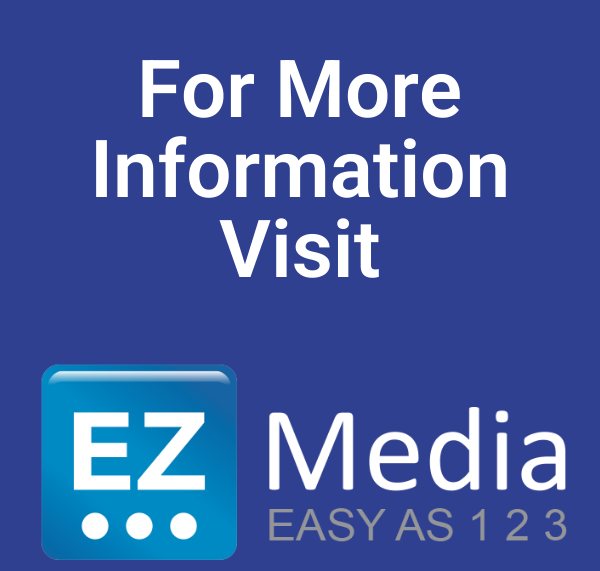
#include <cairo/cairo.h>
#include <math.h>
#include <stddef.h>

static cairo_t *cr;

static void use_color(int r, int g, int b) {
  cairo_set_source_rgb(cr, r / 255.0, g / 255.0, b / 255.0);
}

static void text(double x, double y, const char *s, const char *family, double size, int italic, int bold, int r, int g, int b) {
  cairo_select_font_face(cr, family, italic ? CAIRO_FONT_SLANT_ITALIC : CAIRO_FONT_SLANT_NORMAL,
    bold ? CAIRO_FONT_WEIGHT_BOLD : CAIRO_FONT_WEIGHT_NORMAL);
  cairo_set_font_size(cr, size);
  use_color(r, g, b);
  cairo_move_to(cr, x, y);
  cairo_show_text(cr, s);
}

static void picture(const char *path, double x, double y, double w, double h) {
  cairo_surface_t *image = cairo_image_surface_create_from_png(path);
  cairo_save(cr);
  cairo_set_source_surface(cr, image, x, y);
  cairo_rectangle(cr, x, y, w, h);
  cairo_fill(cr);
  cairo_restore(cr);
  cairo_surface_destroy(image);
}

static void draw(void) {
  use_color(47, 64, 144);
  cairo_paint(cr);
  picture("img_01.png", 41, 364, 526, 196);
  text(137, 117, "For More", "Roboto SemiBold", 80, 0, 0, 255, 255, 255);
  text(90, 197, "Information", "Roboto SemiBold", 80, 0, 0, 255, 255, 255);
  text(219, 277, "Visit", "Roboto SemiBold", 80, 0, 0, 255, 255, 255);
}

int main(void) {
  cairo_surface_t *surface = cairo_image_surface_create(CAIRO_FORMAT_RGB24, 600, 571);
  cr = cairo_create(surface);
  cairo_font_options_t *options = cairo_font_options_create();
  cairo_font_options_set_hint_metrics(options, CAIRO_HINT_METRICS_OFF);
  cairo_font_options_set_hint_style(options, CAIRO_HINT_STYLE_NONE);
  cairo_set_font_options(cr, options);
  cairo_set_miter_limit(cr, 4);
  draw();
  cairo_surface_write_to_png(surface, "out.png");
  cairo_font_options_destroy(options);
  cairo_destroy(cr);
  cairo_surface_destroy(surface);
  return 0;
}
